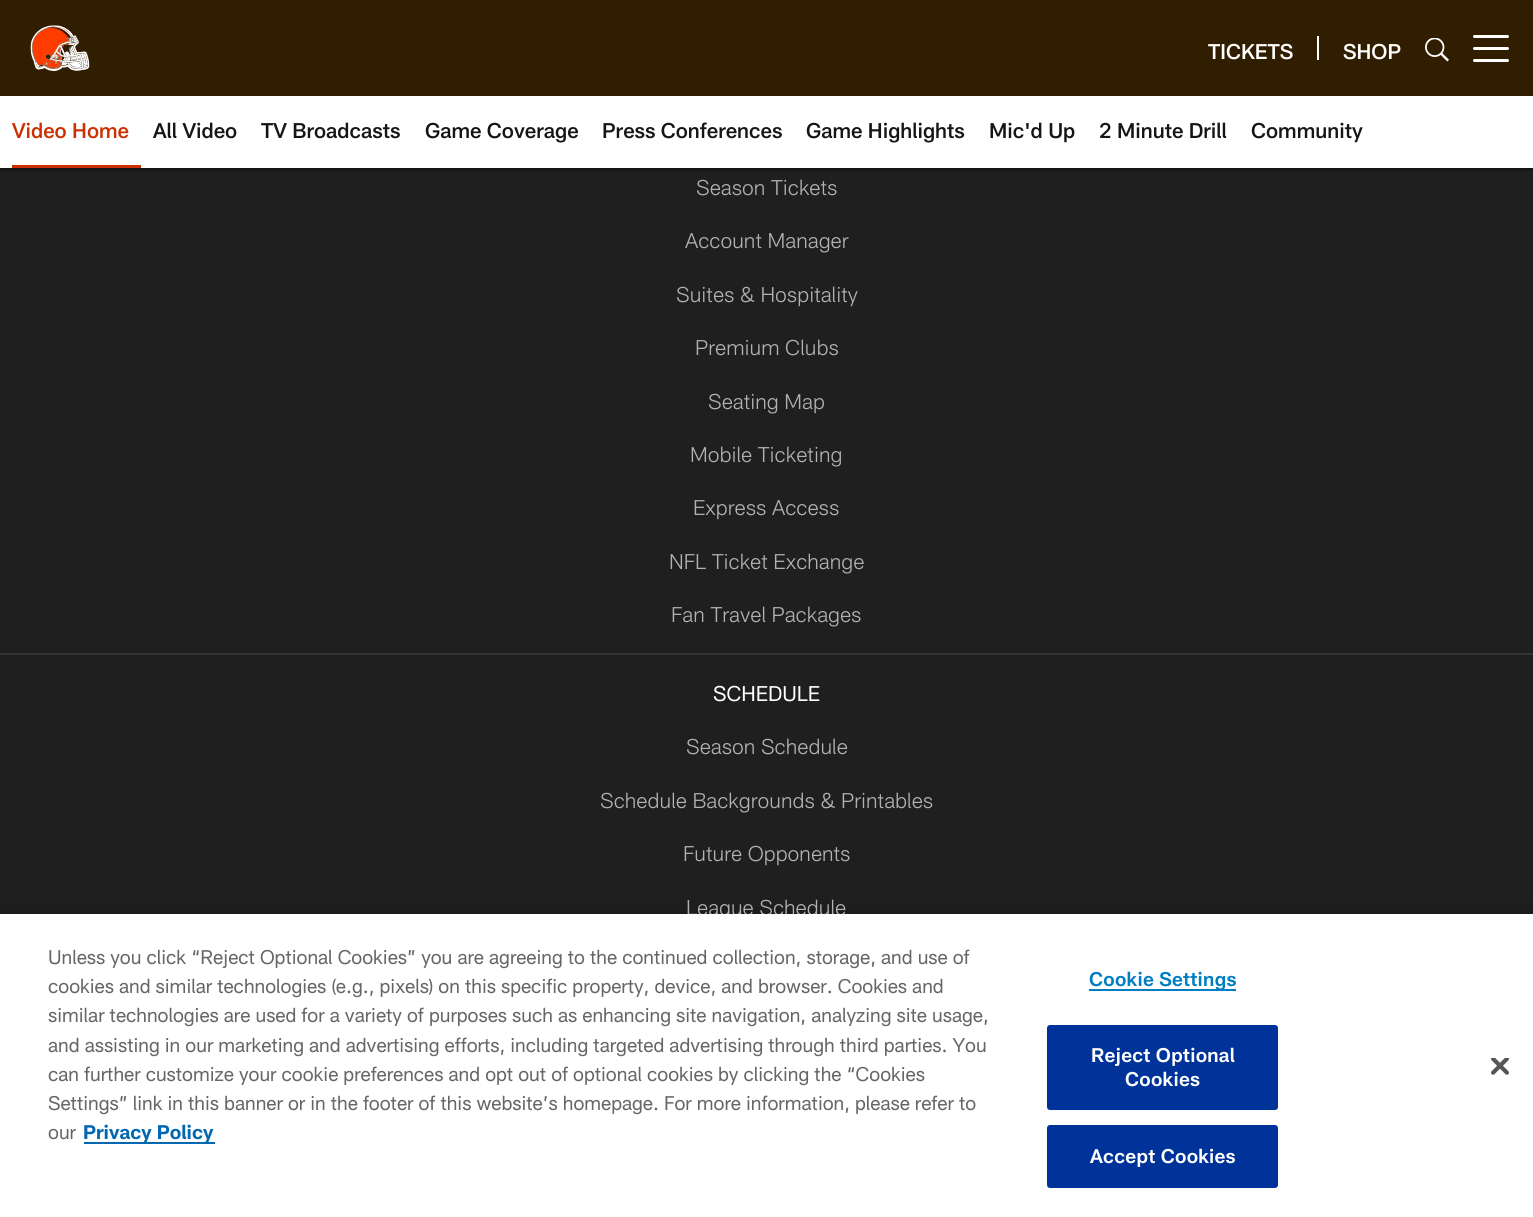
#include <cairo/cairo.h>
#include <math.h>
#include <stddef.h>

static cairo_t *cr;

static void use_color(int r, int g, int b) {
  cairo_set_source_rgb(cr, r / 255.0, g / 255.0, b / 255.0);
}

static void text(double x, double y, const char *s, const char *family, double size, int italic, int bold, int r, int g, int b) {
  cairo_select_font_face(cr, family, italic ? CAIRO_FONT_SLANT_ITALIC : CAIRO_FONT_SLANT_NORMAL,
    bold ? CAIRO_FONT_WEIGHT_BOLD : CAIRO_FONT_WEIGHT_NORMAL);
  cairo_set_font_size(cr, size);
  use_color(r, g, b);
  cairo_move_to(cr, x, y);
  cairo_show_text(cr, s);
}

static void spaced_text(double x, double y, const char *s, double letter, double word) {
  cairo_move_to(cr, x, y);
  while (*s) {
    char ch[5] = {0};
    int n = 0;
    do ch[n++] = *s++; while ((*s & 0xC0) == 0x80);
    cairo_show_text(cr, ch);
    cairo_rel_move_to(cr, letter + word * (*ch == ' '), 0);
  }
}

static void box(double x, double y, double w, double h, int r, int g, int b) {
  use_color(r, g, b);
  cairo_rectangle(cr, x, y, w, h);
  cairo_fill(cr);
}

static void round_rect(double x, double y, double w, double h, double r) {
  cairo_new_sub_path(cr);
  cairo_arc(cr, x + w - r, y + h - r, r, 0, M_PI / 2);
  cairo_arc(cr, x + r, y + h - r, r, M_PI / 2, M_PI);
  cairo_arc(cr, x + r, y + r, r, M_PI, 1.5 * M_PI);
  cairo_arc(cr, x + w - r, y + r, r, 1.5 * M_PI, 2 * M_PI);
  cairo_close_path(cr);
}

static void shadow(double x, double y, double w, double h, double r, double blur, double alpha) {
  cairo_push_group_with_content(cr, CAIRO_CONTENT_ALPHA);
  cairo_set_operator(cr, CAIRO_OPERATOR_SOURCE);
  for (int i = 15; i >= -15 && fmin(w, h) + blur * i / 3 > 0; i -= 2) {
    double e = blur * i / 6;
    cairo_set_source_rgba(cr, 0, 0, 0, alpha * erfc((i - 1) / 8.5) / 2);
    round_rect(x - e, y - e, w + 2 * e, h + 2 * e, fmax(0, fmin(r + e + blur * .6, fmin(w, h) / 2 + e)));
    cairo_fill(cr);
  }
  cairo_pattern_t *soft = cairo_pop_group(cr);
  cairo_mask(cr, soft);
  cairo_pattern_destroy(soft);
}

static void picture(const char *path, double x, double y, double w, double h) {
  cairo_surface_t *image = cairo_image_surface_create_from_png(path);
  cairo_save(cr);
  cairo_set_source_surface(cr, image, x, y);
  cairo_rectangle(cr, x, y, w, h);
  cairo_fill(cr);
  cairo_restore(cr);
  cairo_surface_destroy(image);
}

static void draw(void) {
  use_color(31, 31, 31);
  cairo_paint(cr);
  box(0, 0, 1533, 96, 49, 29, 0);
  picture("img_01.png", 30, 25, 60, 46);
  box(1317, 36, 2, 24, 255, 255, 255);
  picture("img_02.png", 1425, 38, 24, 24);
  round_rect(1473, 47, 36, 3, 1.5);
  cairo_fill(cr);
  round_rect(1473, 35, 36, 3, 1.5);
  cairo_fill(cr);
  round_rect(1473, 59, 36, 3, 1.5);
  cairo_fill(cr);
  use_color(0, 0, 0);
  shadow(0, 98, 1533, 72, 0, 1.5, 0.47);
  box(0, 96, 1533, 72, 255, 255, 255);
  box(12, 165, 129, 3, 204, 47, 0);
  box(0, 653, 1533, 2, 51, 51, 51);
  use_color(0, 0, 0);
  shadow(0, 914, 1533, 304, 0, 13.5, 0.2);
  text(1208, 59, "TICKETS", "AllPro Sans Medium", 21, 0, 0, 255, 255, 255);
  text(1343, 59, "SHOP", "AllPro Sans Medium", 21, 0, 0, 255, 255, 255);
  text(12, 138, "Video Home", "AllPro Sans Medium", 21, 0, 0, 204, 47, 0);
  text(153, 138, "All Video", "AllPro Sans Medium", 21, 0, 0, 21, 21, 21);
  text(261, 138, "TV Broadcasts", "AllPro Sans Medium", 21, 0, 0, 21, 21, 21);
  text(425, 138, "Game Coverage", "AllPro Sans Medium", 21, 0, 0, 21, 21, 21);
  text(602, 138, "Press Conferences", "AllPro Sans Medium", 21, 0, 0, 21, 21, 21);
  text(806, 138, "Game Highlights", "AllPro Sans Medium", 21, 0, 0, 21, 21, 21);
  text(989, 138, "Mic'd Up", "AllPro Sans Medium", 21, 0, 0, 21, 21, 21);
  text(1099, 138, "2 Minute Drill", "AllPro Sans Medium", 21, 0, 0, 21, 21, 21);
  text(1251, 138, "Community", "AllPro Sans Medium", 21, 0, 0, 21, 21, 21);
  text(696, 195, "Season Tickets", "AllPro Sans Light", 21, 0, 0, 178, 178, 178);
  text(685, 248, "Account Manager", "AllPro Sans Light", 21, 0, 0, 178, 178, 178);
  text(676, 302, "Suites & Hospitality", "AllPro Sans Light", 21, 0, 0, 178, 178, 178);
  text(695, 355, "Premium Clubs", "AllPro Sans Light", 21, 0, 0, 178, 178, 178);
  text(708, 409, "Seating Map", "AllPro Sans Light", 21, 0, 0, 178, 178, 178);
  text(690, 462, "Mobile Ticketing", "AllPro Sans Light", 21, 0, 0, 178, 178, 178);
  text(693, 515, "Express Access", "AllPro Sans Light", 21, 0, 0, 178, 178, 178);
  text(669, 569, "NFL Ticket Exchange", "AllPro Sans Light", 21, 0, 0, 178, 178, 178);
  text(671, 622, "Fan Travel Packages", "AllPro Sans Light", 21, 0, 0, 178, 178, 178);
  text(713, 701, "SCHEDULE", "AllPro Sans", 21, 0, 0, 255, 255, 255);
  text(686, 754, "Season Schedule", "AllPro Sans Light", 21, 0, 0, 178, 178, 178);
  text(600, 808, "Schedule Backgrounds & Printables", "AllPro Sans Light", 21, 0, 0, 178, 178, 178);
  text(683, 861, "Future Opponents", "AllPro Sans Light", 21, 0, 0, 178, 178, 178);
  text(686, 915, "League Schedule", "AllPro Sans Light", 21, 0, 0, 178, 178, 178);
  box(0, 914, 1533, 303, 255, 255, 255);
  text(48, 964, "Unless you click “Reject Optional Cookies” you are agreeing to the continued collection, storage, and use of", "AllPro Sans", 19.5, 0, 0, 102, 102, 102);
  text(48, 993, "cookies and similar technologies (e.g., pixels) on this specific property, device, and browser. Cookies and", "AllPro Sans", 19.5, 0, 0, 102, 102, 102);
  text(48, 1022, "similar technologies are used for a variety of purposes such as enhancing site navigation, analyzing site usage,", "AllPro Sans", 19.5, 0, 0, 102, 102, 102);
  text(48, 1052, "and assisting in our marketing and advertising efforts, including targeted advertising through third parties. You", "AllPro Sans", 19.5, 0, 0, 102, 102, 102);
  text(48, 1081, "can further customize your cookie preferences and opt out of optional cookies by clicking the “Cookies", "AllPro Sans", 19.5, 0, 0, 102, 102, 102);
  text(48, 1110, "Settings” link in this banner or in the footer of this website’s homepage. For more information, please refer to", "AllPro Sans", 19.5, 0, 0, 102, 102, 102);
  text(48, 1139, "our", "AllPro Sans", 19.5, 0, 0, 102, 102, 102);
  box(84, 1142, 131, 2, 0, 103, 177);
  text(83, 1139, "Privacy Policy", "AllPro Sans", 19.5, 0, 1, 0, 103, 177);
  box(1089, 989, 147, 2, 0, 125, 195);
  cairo_select_font_face(cr, "AllPro Sans SemiBold", CAIRO_FONT_SLANT_NORMAL, CAIRO_FONT_WEIGHT_NORMAL);
  spaced_text(1089, 986, "Cookie Settings", 0.25, 0);
  use_color(0, 51, 153);
  round_rect(1048, 1026, 229, 83, 2);
  cairo_fill_preserve(cr);
  cairo_stroke(cr);
  use_color(255, 255, 255);
  spaced_text(1091, 1062, "Reject Optional", 0.25, 0);
  spaced_text(1125, 1086, "Cookies", 0.25, 0);
  use_color(0, 51, 153);
  round_rect(1048, 1126, 229, 61, 2);
  cairo_fill_preserve(cr);
  cairo_stroke(cr);
  use_color(255, 255, 255);
  spaced_text(1090, 1163, "Accept Cookies", 0.25, 0);
  picture("img_03.png", 1491, 1058, 18, 17);
}

int main(void) {
  cairo_surface_t *surface = cairo_image_surface_create(CAIRO_FORMAT_RGB24, 1533, 1217);
  cr = cairo_create(surface);
  cairo_font_options_t *options = cairo_font_options_create();
  cairo_font_options_set_hint_metrics(options, CAIRO_HINT_METRICS_OFF);
  cairo_font_options_set_hint_style(options, CAIRO_HINT_STYLE_NONE);
  cairo_set_font_options(cr, options);
  cairo_set_miter_limit(cr, 4);
  draw();
  cairo_surface_write_to_png(surface, "out.png");
  cairo_font_options_destroy(options);
  cairo_destroy(cr);
  cairo_surface_destroy(surface);
  return 0;
}
